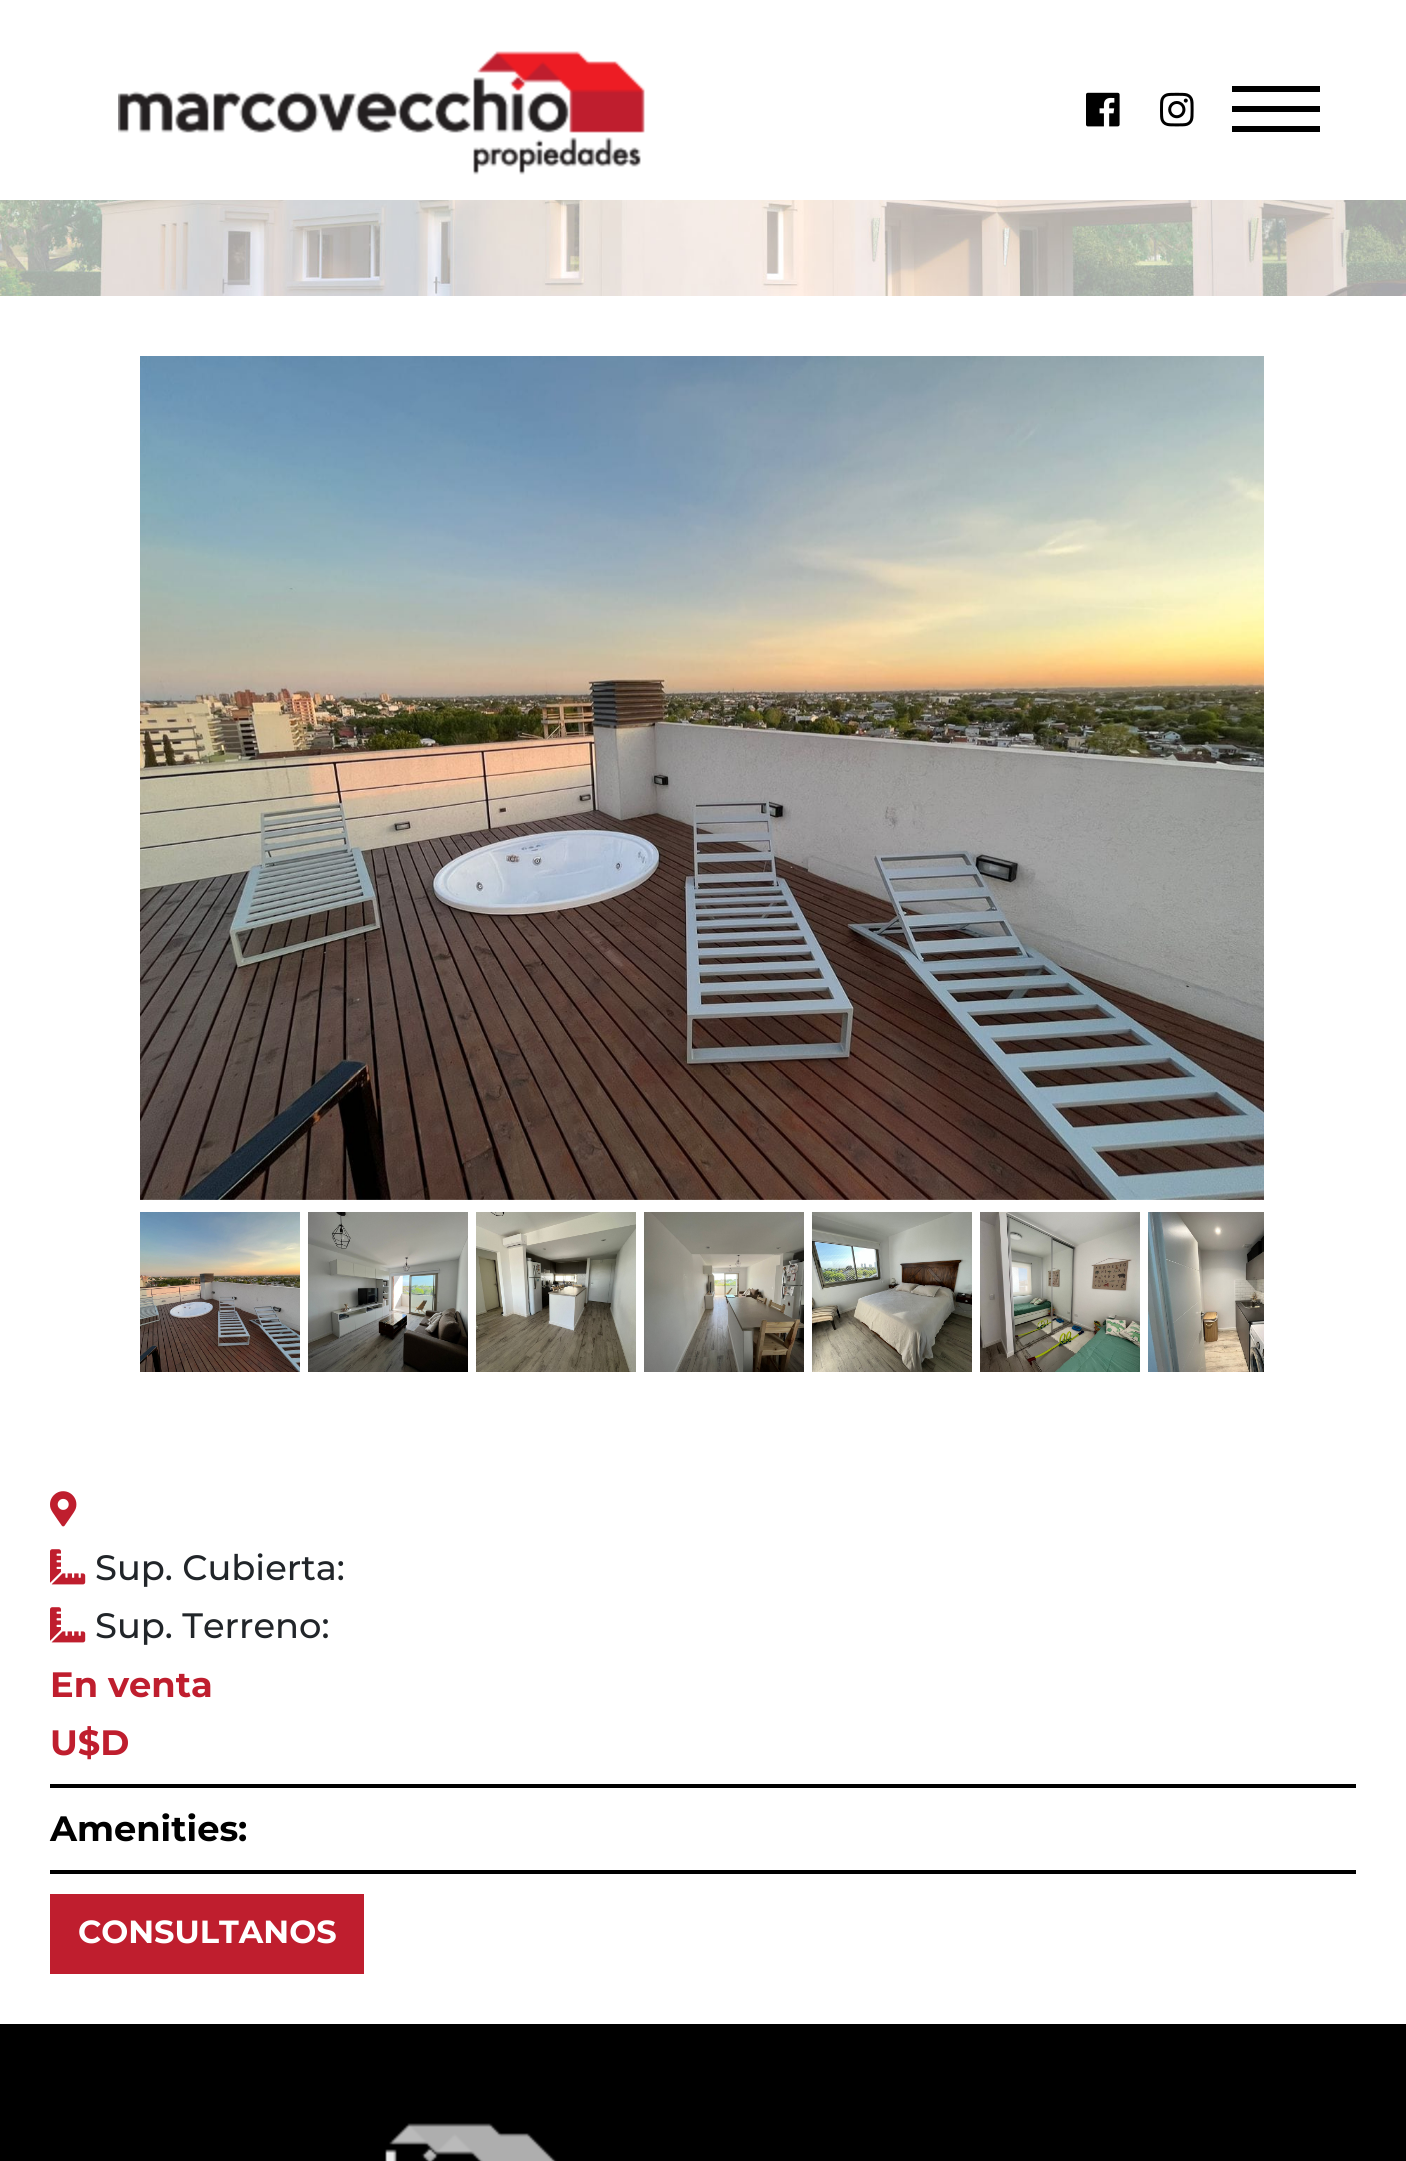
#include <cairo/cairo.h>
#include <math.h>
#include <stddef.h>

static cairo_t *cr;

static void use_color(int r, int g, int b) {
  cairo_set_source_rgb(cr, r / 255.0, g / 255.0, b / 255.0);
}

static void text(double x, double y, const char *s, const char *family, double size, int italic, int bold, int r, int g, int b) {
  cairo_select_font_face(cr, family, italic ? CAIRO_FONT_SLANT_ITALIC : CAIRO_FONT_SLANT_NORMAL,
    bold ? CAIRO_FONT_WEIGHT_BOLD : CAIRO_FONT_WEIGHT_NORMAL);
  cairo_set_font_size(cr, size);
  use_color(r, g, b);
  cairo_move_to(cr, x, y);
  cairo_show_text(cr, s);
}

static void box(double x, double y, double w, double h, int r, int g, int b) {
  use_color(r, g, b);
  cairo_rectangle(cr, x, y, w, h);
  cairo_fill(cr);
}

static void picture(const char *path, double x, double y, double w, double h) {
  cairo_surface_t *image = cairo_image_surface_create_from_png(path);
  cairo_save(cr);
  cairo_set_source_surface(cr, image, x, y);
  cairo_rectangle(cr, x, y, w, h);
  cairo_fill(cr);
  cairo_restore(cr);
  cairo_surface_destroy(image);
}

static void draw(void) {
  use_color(255, 255, 255);
  cairo_paint(cr);
  picture("img_01.png", 118, 51, 527, 124);
  picture("img_02.png", 1086, 92, 34, 35);
  picture("img_03.png", 1160, 92, 34, 35);
  box(1232, 86, 88, 6, 0, 0, 0);
  box(1232, 106, 88, 6, 0, 0, 0);
  box(1232, 126, 88, 6, 0, 0, 0);
  picture("img_04.png", 0, 200, 1406, 96);
  picture("img_05.png", 140, 356, 1124, 844);
  picture("img_06.png", 140, 1212, 160, 160);
  picture("img_07.png", 308, 1212, 160, 160);
  picture("img_08.png", 476, 1212, 160, 160);
  picture("img_09.png", 644, 1212, 160, 160);
  picture("img_10.png", 812, 1212, 160, 160);
  picture("img_11.png", 980, 1212, 160, 160);
  picture("img_12.png", 1148, 1212, 116, 160);
  picture("img_13.png", 50, 1491, 27, 36);
  picture("img_14.png", 50, 1549, 36, 36);
  picture("img_14.png", 50, 1607, 36, 36);
  box(50, 1784, 1306, 4, 0, 0, 0);
  box(50, 1870, 1306, 4, 0, 0, 0);
  box(50, 1894, 314, 80, 191, 30, 46);
  box(0, 2024, 1406, 137, 0, 0, 0);
  picture("img_15.png", 385, 2123, 172, 38);
  text(95, 1580, "Sup. Cubierta:", "Montserrat Medium", 35.25, 0, 0, 33, 37, 41);
  text(95, 1638, "Sup. Terreno:", "Montserrat Medium", 35.25, 0, 0, 33, 37, 41);
  text(50, 1697, "En venta", "Montserrat", 35.25, 0, 1, 191, 30, 46);
  text(50, 1755, "U$D", "Montserrat", 35.25, 0, 1, 191, 30, 46);
  text(50, 1841, "Amenities:", "Montserrat", 35.25, 0, 1, 0, 0, 0);
  text(78, 1943, "CONSULTANOS", "Montserrat", 32, 0, 1, 255, 255, 255);
}

int main(void) {
  cairo_surface_t *surface = cairo_image_surface_create(CAIRO_FORMAT_RGB24, 1406, 2161);
  cr = cairo_create(surface);
  cairo_font_options_t *options = cairo_font_options_create();
  cairo_font_options_set_hint_metrics(options, CAIRO_HINT_METRICS_OFF);
  cairo_font_options_set_hint_style(options, CAIRO_HINT_STYLE_NONE);
  cairo_set_font_options(cr, options);
  cairo_set_miter_limit(cr, 4);
  draw();
  cairo_surface_write_to_png(surface, "out.png");
  cairo_font_options_destroy(options);
  cairo_destroy(cr);
  cairo_surface_destroy(surface);
  return 0;
}
